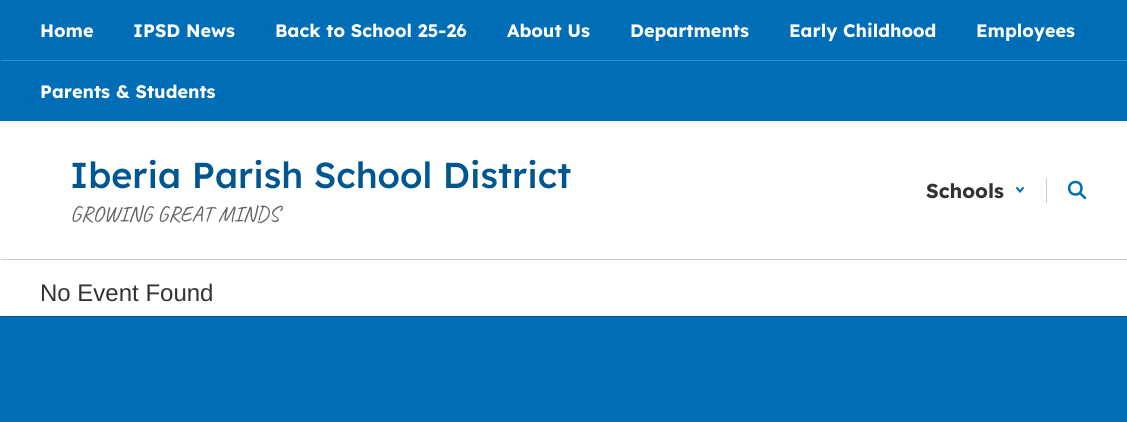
#include <cairo/cairo.h>
#include <math.h>
#include <stddef.h>

static cairo_t *cr;

static void use_color(int r, int g, int b) {
  cairo_set_source_rgb(cr, r / 255.0, g / 255.0, b / 255.0);
}

static void text(double x, double y, const char *s, const char *family, double size, int italic, int bold, int r, int g, int b) {
  cairo_select_font_face(cr, family, italic ? CAIRO_FONT_SLANT_ITALIC : CAIRO_FONT_SLANT_NORMAL,
    bold ? CAIRO_FONT_WEIGHT_BOLD : CAIRO_FONT_WEIGHT_NORMAL);
  cairo_set_font_size(cr, size);
  use_color(r, g, b);
  cairo_move_to(cr, x, y);
  cairo_show_text(cr, s);
}

static void box(double x, double y, double w, double h, int r, int g, int b) {
  use_color(r, g, b);
  cairo_rectangle(cr, x, y, w, h);
  cairo_fill(cr);
}

static void draw(void) {
  use_color(255, 255, 255);
  cairo_paint(cr);
  box(0, 0, 1127, 121, 0, 110, 183);
  box(1, 60, 1126, 1, 51, 139, 197);
  box(1046, 178, 1, 25, 204, 204, 204);
  cairo_new_path(cr);
  cairo_move_to(cr, 1017, 188);
  cairo_line_to(cr, 1020, 191.5);
  cairo_line_to(cr, 1023, 188);
  use_color(0, 110, 183);
  cairo_set_line_cap(cr, CAIRO_LINE_CAP_ROUND);
  cairo_stroke(cr);
  cairo_new_path(cr);
  cairo_move_to(cr, 1075.5, 194.5);
  cairo_curve_to(cr, 1083.5, 194.5, 1083.5, 182, 1075.5, 182);
  cairo_curve_to(cr, 1067, 182, 1067, 194.5, 1075.5, 194.5);
  cairo_close_path(cr);
  cairo_set_line_width(cr, 2.5);
  cairo_set_line_cap(cr, CAIRO_LINE_CAP_SQUARE);
  cairo_set_line_join(cr, CAIRO_LINE_JOIN_ROUND);
  cairo_stroke(cr);
  cairo_new_path(cr);
  cairo_move_to(cr, 1085, 198);
  cairo_line_to(cr, 1080, 193);
  cairo_set_line_cap(cr, CAIRO_LINE_CAP_ROUND);
  cairo_stroke(cr);
  box(1, 259, 1126, 1, 204, 204, 204);
  box(0, 316, 1127, 106, 0, 110, 183);
  box(1, 316, 1126, 1, 0, 88, 146);
  text(40, 37, "Home", "Lexend", 18, 0, 1, 255, 255, 255);
  text(133, 37, "IPSD News", "Lexend", 18, 0, 1, 255, 255, 255);
  text(275, 37, "Back to School 25-26", "Lexend", 18, 0, 1, 255, 255, 255);
  text(507, 37, "About Us", "Lexend", 18, 0, 1, 255, 255, 255);
  text(630, 37, "Departments", "Lexend", 18, 0, 1, 255, 255, 255);
  text(789, 37, "Early Childhood", "Lexend", 18, 0, 1, 255, 255, 255);
  text(976, 37, "Employees", "Lexend", 18, 0, 1, 255, 255, 255);
  text(40, 98, "Parents & Students", "Lexend", 18, 0, 1, 255, 255, 255);
  text(70, 188, "Iberia Parish School District", "Lexend Medium", 36, 0, 0, 0, 86, 144);
  text(70, 221, "GROWING GREAT MINDS", "Caveat", 22, 0, 0, 99, 99, 99);
  text(926, 198, "Schools", "Lexend", 20, 0, 1, 51, 51, 51);
  text(40, 301, "No Event Found", "Liberation Sans", 24, 0, 0, 51, 51, 51);
}

int main(void) {
  cairo_surface_t *surface = cairo_image_surface_create(CAIRO_FORMAT_RGB24, 1127, 422);
  cr = cairo_create(surface);
  cairo_font_options_t *options = cairo_font_options_create();
  cairo_font_options_set_hint_metrics(options, CAIRO_HINT_METRICS_OFF);
  cairo_font_options_set_hint_style(options, CAIRO_HINT_STYLE_NONE);
  cairo_set_font_options(cr, options);
  cairo_set_miter_limit(cr, 4);
  draw();
  cairo_surface_write_to_png(surface, "out.png");
  cairo_font_options_destroy(options);
  cairo_destroy(cr);
  cairo_surface_destroy(surface);
  return 0;
}
